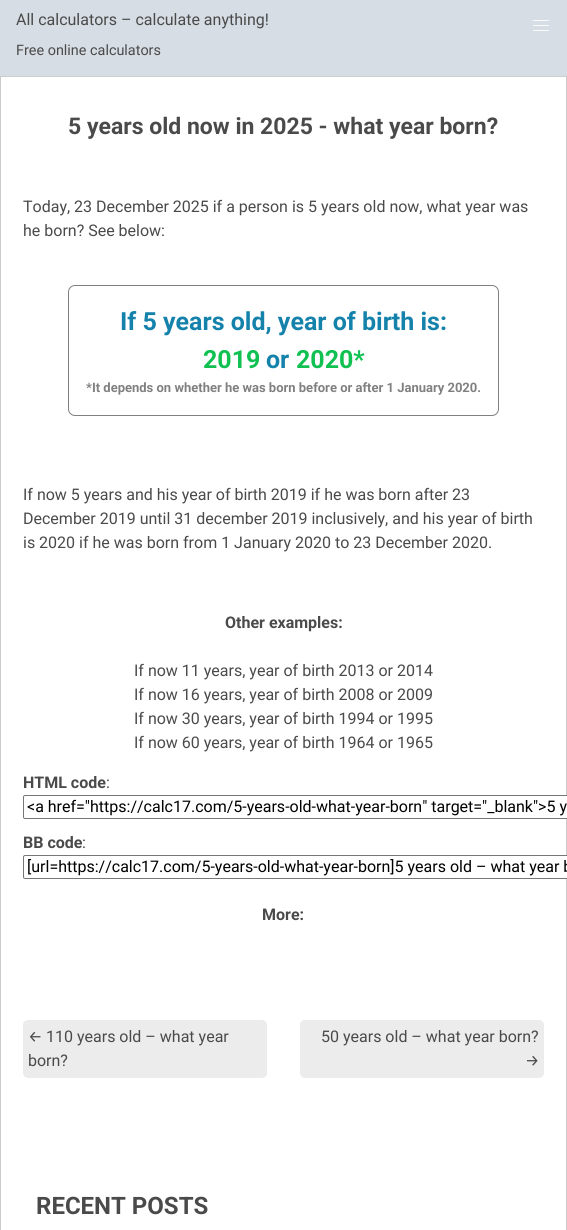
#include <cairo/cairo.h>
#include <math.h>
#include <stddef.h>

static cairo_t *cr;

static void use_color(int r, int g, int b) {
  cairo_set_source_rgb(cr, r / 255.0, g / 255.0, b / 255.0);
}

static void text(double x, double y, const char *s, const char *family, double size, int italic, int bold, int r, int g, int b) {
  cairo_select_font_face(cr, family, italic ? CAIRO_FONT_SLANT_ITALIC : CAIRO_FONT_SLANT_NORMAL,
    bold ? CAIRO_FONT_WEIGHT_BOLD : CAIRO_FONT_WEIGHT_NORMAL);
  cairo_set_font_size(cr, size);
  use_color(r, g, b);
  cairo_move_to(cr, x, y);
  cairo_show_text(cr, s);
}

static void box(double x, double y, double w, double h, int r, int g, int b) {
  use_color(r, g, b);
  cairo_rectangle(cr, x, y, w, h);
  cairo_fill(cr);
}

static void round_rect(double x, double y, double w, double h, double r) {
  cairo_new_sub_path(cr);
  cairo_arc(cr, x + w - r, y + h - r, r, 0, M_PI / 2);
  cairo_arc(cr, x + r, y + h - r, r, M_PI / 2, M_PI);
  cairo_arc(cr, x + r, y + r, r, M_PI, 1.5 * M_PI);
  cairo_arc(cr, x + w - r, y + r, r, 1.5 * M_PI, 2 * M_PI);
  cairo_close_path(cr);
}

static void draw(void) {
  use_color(255, 255, 255);
  cairo_paint(cr);
  box(0, 0, 567, 76, 215, 221, 228);
  box(0, 76, 567, 1, 204, 204, 204);
  box(533, 20, 16, 1, 250, 250, 250);
  box(533, 25, 16, 1, 250, 250, 250);
  box(533, 30, 16, 1, 250, 250, 250);
  box(566, 77, 1, 1153, 204, 204, 204);
  box(0, 77, 1, 1153, 204, 204, 204);
  round_rect(68.5, 285.5, 430, 130, 6.5);
  use_color(128, 128, 128);
  cairo_set_line_width(cr, 1);
  cairo_stroke(cr);
  use_color(255, 255, 255);
  round_rect(23.5, 795.5, 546, 23, 1.5);
  cairo_fill_preserve(cr);
  use_color(118, 118, 118);
  cairo_stroke(cr);
  use_color(255, 255, 255);
  round_rect(23.5, 855.5, 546, 23, 1.5);
  cairo_fill_preserve(cr);
  use_color(118, 118, 118);
  cairo_stroke(cr);
  use_color(236, 236, 236);
  round_rect(23, 1020, 244, 58, 5);
  cairo_fill(cr);
  round_rect(300, 1020, 244, 58, 5);
  cairo_fill(cr);
  text(16, 25, "All calculators – calculate anything!", "Roboto", 16, 0, 0, 74, 74, 74);
  text(16, 55, "Free online calculators", "Roboto", 14.4, 0, 0, 74, 74, 74);
  text(68, 134, "5 years old now in 2025 - what year born?", "Roboto", 23, 0, 1, 74, 74, 74);
  text(23, 212, "Today, 23 December 2025 if a person is 5 years old now, what year was", "Roboto", 16, 0, 0, 74, 74, 74);
  text(23, 236, "he born? See below:", "Roboto", 16, 0, 0, 74, 74, 74);
  text(120, 330, "If 5 years old, year of birth is:", "Roboto", 25, 0, 1, 21, 130, 171);
  text(203, 368, "2019", "Roboto", 25, 0, 1, 16, 193, 82);
  text(266, 368, "or", "Roboto", 25, 0, 1, 21, 130, 171);
  text(296, 368, "2020*", "Roboto", 25, 0, 1, 16, 193, 82);
  text(86, 392, "*It depends on whether he was born before or after 1 January 2020.", "Roboto", 13, 0, 1, 128, 128, 128);
  text(23, 500, "If now 5 years and his year of birth 2019 if he was born after 23", "Roboto", 16, 0, 0, 74, 74, 74);
  text(23, 524, "December 2019 until 31 december 2019 inclusively, and his year of birth", "Roboto", 16, 0, 0, 74, 74, 74);
  text(23, 548, "is 2020 if he was born from 1 January 2020 to 23 December 2020.", "Roboto", 16, 0, 0, 74, 74, 74);
  text(225, 628, "Other examples:", "Roboto", 16, 0, 1, 74, 74, 74);
  text(134, 676, "If now 11 years, year of birth 2013 or 2014", "Roboto", 16, 0, 0, 74, 74, 74);
  text(134, 700, "If now 16 years, year of birth 2008 or 2009", "Roboto", 16, 0, 0, 74, 74, 74);
  text(134, 724, "If now 30 years, year of birth 1994 or 1995", "Roboto", 16, 0, 0, 74, 74, 74);
  text(134, 748, "If now 60 years, year of birth 1964 or 1965", "Roboto", 16, 0, 0, 74, 74, 74);
  text(23, 788, "HTML code", "Roboto", 16, 0, 1, 74, 74, 74);
  text(106, 788, ":", "Roboto", 16, 0, 0, 74, 74, 74);
  text(27, 812, "<a href=\"https://calc17.com/5-years-old-what-year-born\" target=\"_blank\">5 y", "Roboto", 16, 0, 0, 0, 0, 0);
  text(23, 848, "BB code", "Roboto", 16, 0, 1, 74, 74, 74);
  text(82, 848, ":", "Roboto", 16, 0, 0, 74, 74, 74);
  text(27, 872, "[url=https://calc17.com/5-years-old-what-year-born]5 years old – what year b", "Roboto", 16, 0, 0, 0, 0, 0);
  text(262, 920, "More:", "Roboto", 16, 0, 1, 74, 74, 74);
  text(28, 1042, "←", "Fira Sans", 16, 0, 0, 74, 74, 74);
  text(46, 1042, "110 years old – what year", "Roboto", 16, 0, 0, 74, 74, 74);
  text(28, 1066, "born?", "Roboto", 16, 0, 0, 74, 74, 74);
  text(321, 1042, "50 years old – what year born?", "Roboto", 16, 0, 0, 74, 74, 74);
  text(525, 1066, "→", "Fira Sans", 16, 0, 0, 74, 74, 74);
  text(36, 1214, "RECENT POSTS", "Roboto", 24, 0, 1, 74, 74, 74);
}

int main(void) {
  cairo_surface_t *surface = cairo_image_surface_create(CAIRO_FORMAT_RGB24, 567, 1230);
  cr = cairo_create(surface);
  cairo_font_options_t *options = cairo_font_options_create();
  cairo_font_options_set_hint_metrics(options, CAIRO_HINT_METRICS_OFF);
  cairo_font_options_set_hint_style(options, CAIRO_HINT_STYLE_NONE);
  cairo_set_font_options(cr, options);
  cairo_set_miter_limit(cr, 4);
  draw();
  cairo_surface_write_to_png(surface, "out.png");
  cairo_font_options_destroy(options);
  cairo_destroy(cr);
  cairo_surface_destroy(surface);
  return 0;
}
